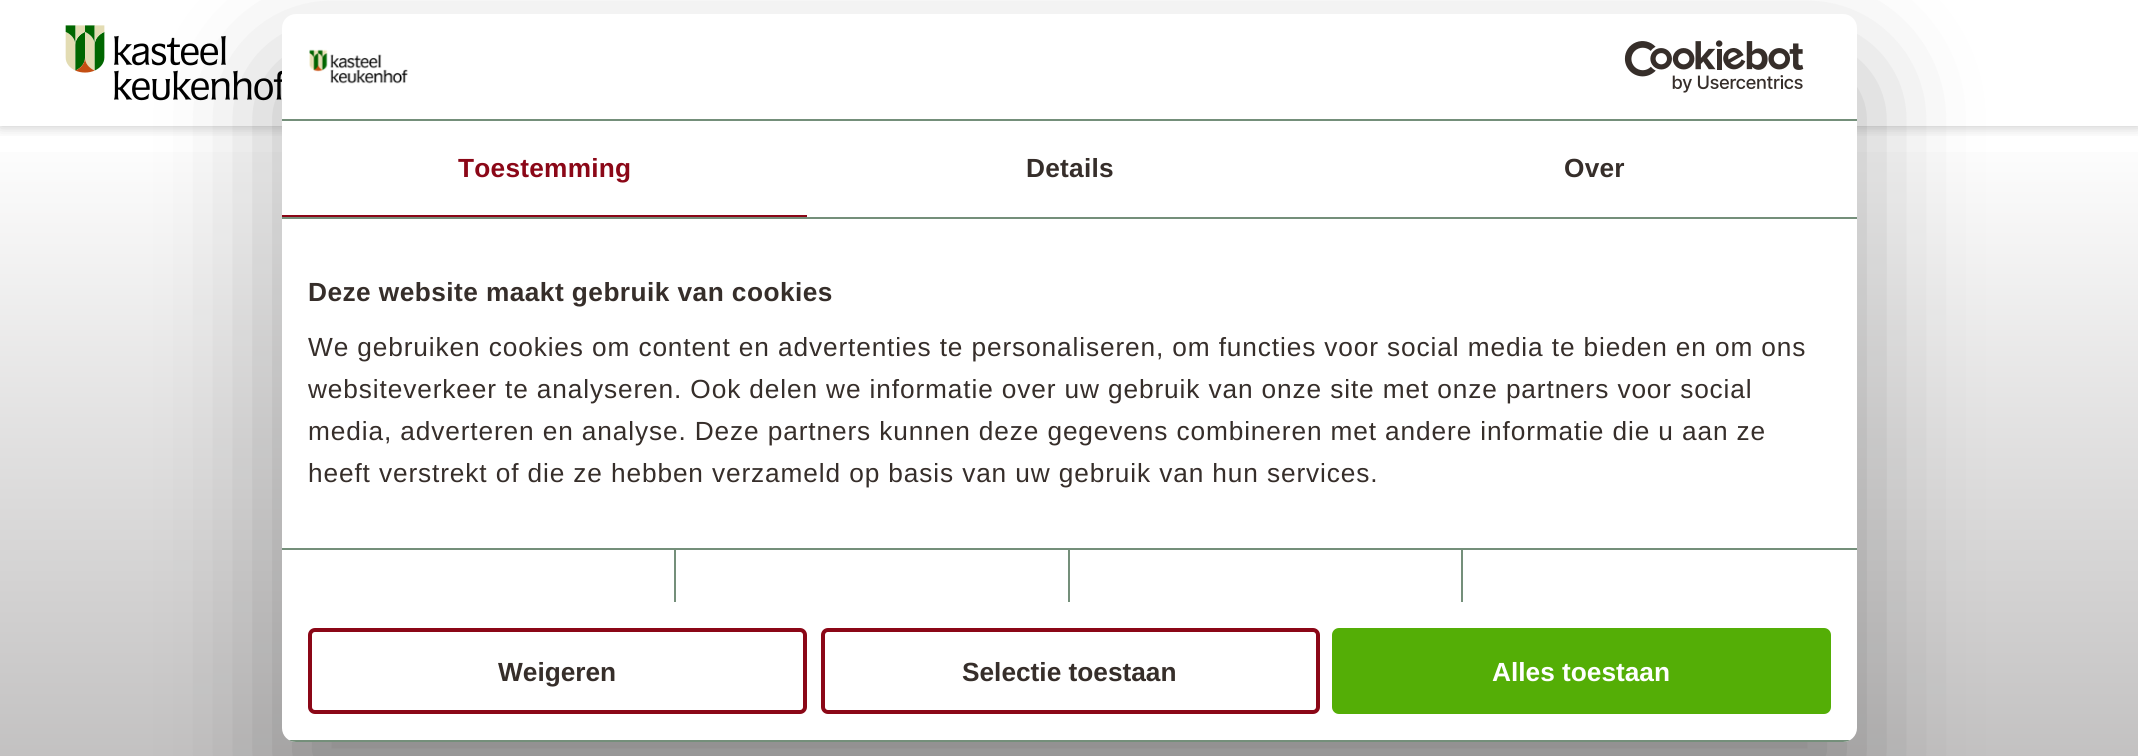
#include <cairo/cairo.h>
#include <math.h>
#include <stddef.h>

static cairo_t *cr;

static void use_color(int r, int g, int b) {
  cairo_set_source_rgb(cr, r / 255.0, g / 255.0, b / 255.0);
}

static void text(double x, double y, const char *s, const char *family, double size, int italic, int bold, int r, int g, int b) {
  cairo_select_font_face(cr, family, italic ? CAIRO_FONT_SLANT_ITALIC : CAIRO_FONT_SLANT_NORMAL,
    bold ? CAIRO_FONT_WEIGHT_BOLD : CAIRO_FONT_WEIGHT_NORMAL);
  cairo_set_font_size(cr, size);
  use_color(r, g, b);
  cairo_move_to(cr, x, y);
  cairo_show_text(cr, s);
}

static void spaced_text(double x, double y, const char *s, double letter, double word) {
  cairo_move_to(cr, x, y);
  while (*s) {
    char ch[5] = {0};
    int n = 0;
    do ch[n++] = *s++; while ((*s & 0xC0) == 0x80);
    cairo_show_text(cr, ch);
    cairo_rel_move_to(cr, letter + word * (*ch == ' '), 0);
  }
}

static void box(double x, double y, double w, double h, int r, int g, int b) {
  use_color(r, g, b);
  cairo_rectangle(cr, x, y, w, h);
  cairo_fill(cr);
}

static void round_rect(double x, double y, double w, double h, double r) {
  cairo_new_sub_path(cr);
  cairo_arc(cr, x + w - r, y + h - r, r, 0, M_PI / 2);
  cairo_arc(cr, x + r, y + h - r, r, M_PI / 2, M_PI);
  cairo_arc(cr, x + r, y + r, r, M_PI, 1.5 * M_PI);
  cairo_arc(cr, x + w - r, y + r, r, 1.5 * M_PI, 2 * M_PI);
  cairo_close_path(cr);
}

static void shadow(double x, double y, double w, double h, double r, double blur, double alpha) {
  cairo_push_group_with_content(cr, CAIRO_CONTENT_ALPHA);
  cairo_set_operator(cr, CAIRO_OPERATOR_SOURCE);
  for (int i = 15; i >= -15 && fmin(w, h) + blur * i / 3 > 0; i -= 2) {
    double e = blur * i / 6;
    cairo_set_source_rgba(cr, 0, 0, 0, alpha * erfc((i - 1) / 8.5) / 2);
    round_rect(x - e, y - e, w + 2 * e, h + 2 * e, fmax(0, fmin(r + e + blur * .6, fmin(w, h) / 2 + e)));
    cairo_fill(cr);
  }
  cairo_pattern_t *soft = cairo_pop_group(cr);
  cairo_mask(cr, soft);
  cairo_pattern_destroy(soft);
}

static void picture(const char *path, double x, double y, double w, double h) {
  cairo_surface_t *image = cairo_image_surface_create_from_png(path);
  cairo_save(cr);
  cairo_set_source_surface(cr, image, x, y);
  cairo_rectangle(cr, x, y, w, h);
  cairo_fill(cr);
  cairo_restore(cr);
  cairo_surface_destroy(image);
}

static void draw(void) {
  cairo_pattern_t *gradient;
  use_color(255, 255, 255);
  cairo_paint(cr);
  cairo_save(cr);
  cairo_rectangle(cr, 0, 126, 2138, 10);
  cairo_clip(cr);
  use_color(0, 0, 0);
  shadow(0, 0, 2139, 126, 0, 7, 0.24);
  cairo_restore(cr);
  picture("img_01.png", 65, 25, 217, 76);
  gradient = cairo_pattern_create_linear(1069, 126, 1069, 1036);
  cairo_pattern_add_color_stop_rgba(gradient, 0, 1, 1, 1, 1);
  cairo_pattern_add_color_stop_rgba(gradient, 1, 0.659, 0.651, 0.651, 1);
  cairo_set_source(cr, gradient);
  cairo_pattern_destroy(gradient);
  cairo_rectangle(cr, 0, 152, 2138, 604);
  cairo_fill(cr);
  use_color(0, 0, 0);
  shadow(282, 70, 1575, 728, 14, 59.5, 0.3);
  use_color(255, 255, 255);
  round_rect(282, 14, 1575, 728, 14);
  cairo_fill(cr);
  box(282, 119, 1575, 2, 116, 143, 122);
  picture("img_02.png", 309, 49, 99, 35);
  picture("img_03.png", 1624, 40, 180, 53);
  box(282, 217, 1575, 2, 116, 143, 122);
  box(282, 215, 525, 2, 139, 7, 23);
  box(282, 548, 1575, 2, 116, 143, 122);
  box(674, 550, 2, 52, 116, 143, 122);
  box(1068, 550, 2, 52, 116, 143, 122);
  box(1461, 550, 2, 52, 116, 143, 122);
  cairo_save(cr);
  round_rect(282, 14, 1575, 728, 14);
  cairo_clip(cr);
  box(282, 740, 1575, 2, 116, 143, 122);
  cairo_restore(cr);
  round_rect(310, 630, 495, 82, 5);
  use_color(139, 7, 23);
  cairo_set_line_width(cr, 4);
  cairo_stroke(cr);
  round_rect(823, 630, 495, 82, 5);
  cairo_stroke(cr);
  use_color(84, 174, 6);
  round_rect(1334, 630, 495, 82, 5);
  cairo_fill_preserve(cr);
  cairo_stroke(cr);
  cairo_select_font_face(cr, "Liberation Sans", CAIRO_FONT_SLANT_NORMAL, CAIRO_FONT_WEIGHT_BOLD);
  cairo_set_font_size(cr, 26.25);
  use_color(139, 7, 23);
  spaced_text(458, 177, "Toestemming", 0.25, 0);
  use_color(54, 46, 42);
  spaced_text(1026, 177, "Details", 0.25, 0);
  spaced_text(1564, 177, "Over", 0.25, 0);
  spaced_text(308, 301, "Deze website maakt gebruik van cookies", 0.45, 0);
  cairo_select_font_face(cr, "Liberation Sans", CAIRO_FONT_SLANT_NORMAL, CAIRO_FONT_WEIGHT_NORMAL);
  spaced_text(308, 356, "We gebruiken cookies om content en advertenties te personaliseren, om functies voor social media te bieden en om ons", 0.88, 0);
  spaced_text(308, 398, "websiteverkeer te analyseren. Ook delen we informatie over uw gebruik van onze site met onze partners voor social", 0.88, 0);
  spaced_text(308, 440, "media, adverteren en analyse. Deze partners kunnen deze gegevens combineren met andere informatie die u aan ze", 0.88, 0);
  spaced_text(308, 482, "heeft verstrekt of die ze hebben verzameld op basis van uw gebruik van hun services.", 0.88, 0);
  text(498, 681, "Weigeren", "Liberation Sans", 26.25, 0, 1, 54, 46, 42);
  text(962, 681, "Selectie toestaan", "Liberation Sans", 26.25, 0, 1, 54, 46, 42);
  text(1492, 681, "Alles toestaan", "Liberation Sans", 26.25, 0, 1, 255, 255, 255);
}

int main(void) {
  cairo_surface_t *surface = cairo_image_surface_create(CAIRO_FORMAT_RGB24, 2138, 756);
  cr = cairo_create(surface);
  cairo_font_options_t *options = cairo_font_options_create();
  cairo_font_options_set_hint_metrics(options, CAIRO_HINT_METRICS_OFF);
  cairo_font_options_set_hint_style(options, CAIRO_HINT_STYLE_NONE);
  cairo_set_font_options(cr, options);
  cairo_set_miter_limit(cr, 4);
  draw();
  cairo_surface_write_to_png(surface, "out.png");
  cairo_font_options_destroy(options);
  cairo_destroy(cr);
  cairo_surface_destroy(surface);
  return 0;
}
